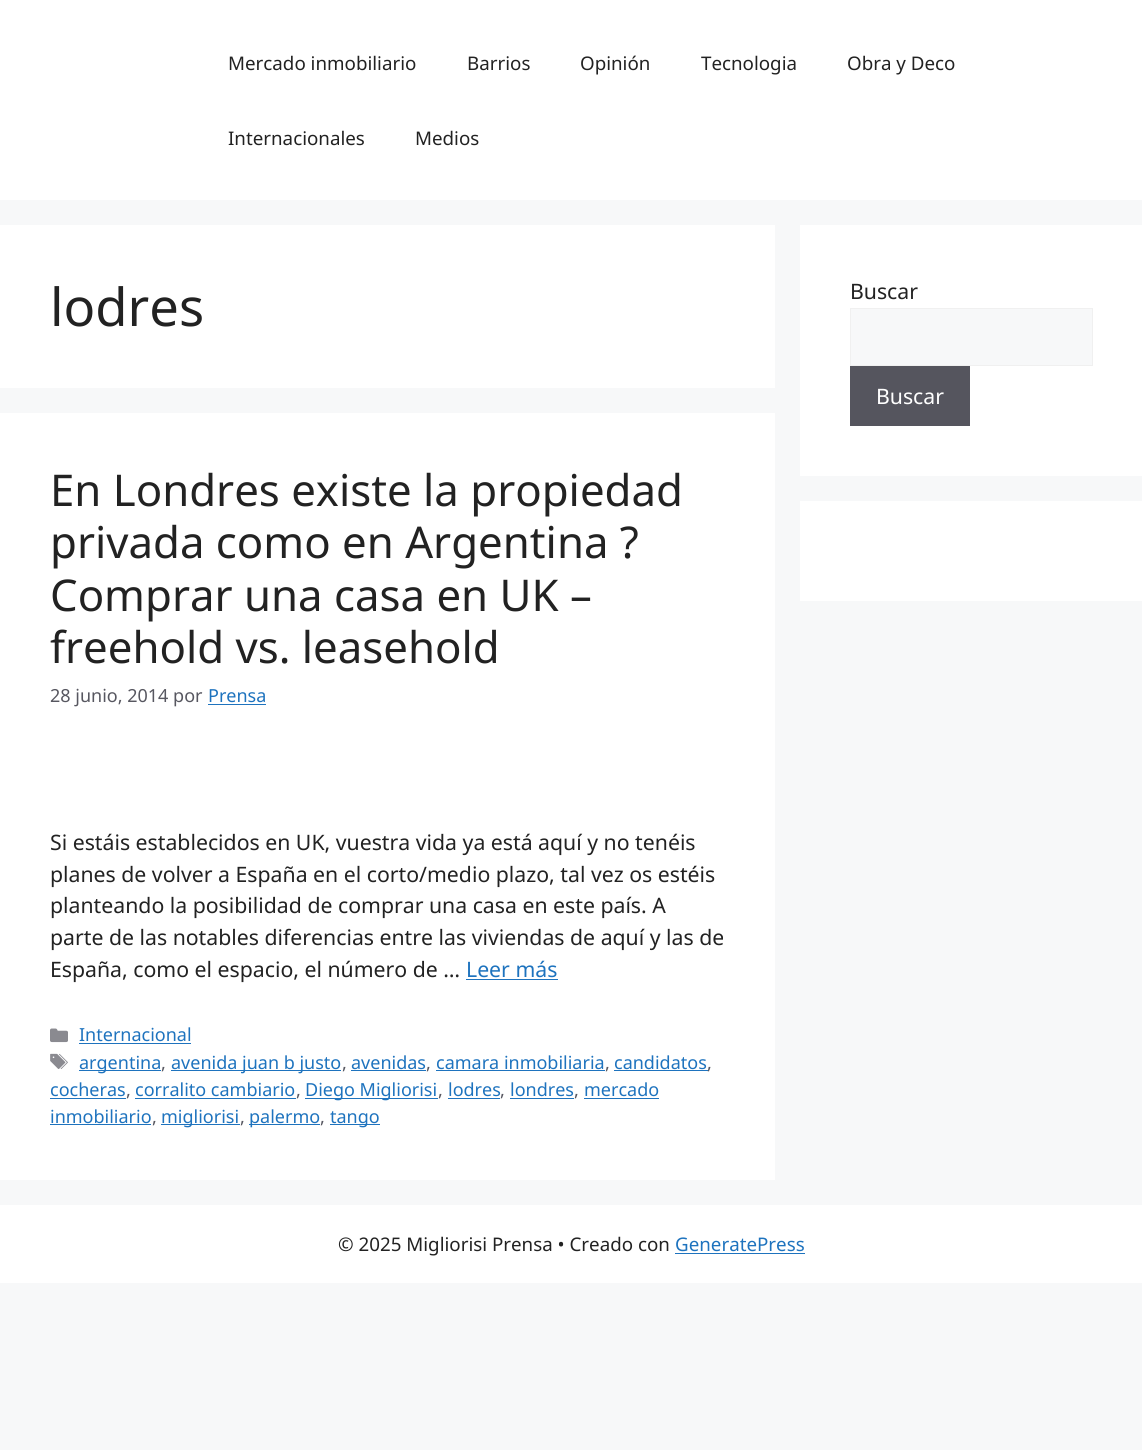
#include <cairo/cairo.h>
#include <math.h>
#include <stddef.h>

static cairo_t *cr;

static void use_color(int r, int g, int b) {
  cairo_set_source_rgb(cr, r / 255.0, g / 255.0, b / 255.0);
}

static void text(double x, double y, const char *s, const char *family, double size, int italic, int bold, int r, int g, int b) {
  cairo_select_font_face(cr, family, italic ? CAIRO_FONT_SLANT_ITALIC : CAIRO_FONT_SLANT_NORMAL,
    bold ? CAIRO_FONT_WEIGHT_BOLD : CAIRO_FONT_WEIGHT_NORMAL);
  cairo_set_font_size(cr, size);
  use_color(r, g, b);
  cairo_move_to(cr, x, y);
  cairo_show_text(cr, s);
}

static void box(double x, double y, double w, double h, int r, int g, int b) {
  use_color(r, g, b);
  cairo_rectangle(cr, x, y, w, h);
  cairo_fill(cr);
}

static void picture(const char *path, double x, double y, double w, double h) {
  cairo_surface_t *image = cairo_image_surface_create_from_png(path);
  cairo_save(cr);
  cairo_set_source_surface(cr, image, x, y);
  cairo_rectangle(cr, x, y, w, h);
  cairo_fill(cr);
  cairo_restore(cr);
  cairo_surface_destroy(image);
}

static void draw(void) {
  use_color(247, 248, 249);
  cairo_paint(cr);
  box(0, 0, 1142, 200, 255, 255, 255);
  box(0, 225, 775, 163, 255, 255, 255);
  box(0, 413, 775, 767, 255, 255, 255);
  box(208, 704, 58, 1, 30, 115, 190);
  box(466, 979, 92, 1, 30, 115, 190);
  picture("img_01.png", 50, 1028, 18, 15);
  box(79, 1043, 112, 1, 30, 115, 190);
  picture("img_02.png", 50, 1053, 18, 16);
  box(79, 1070, 82, 1, 30, 115, 190);
  box(171, 1070, 170, 1, 30, 115, 190);
  box(351, 1070, 75, 1, 30, 115, 190);
  box(436, 1070, 169, 1, 30, 115, 190);
  box(614, 1070, 94, 1, 30, 115, 190);
  box(50, 1098, 76, 1, 30, 115, 190);
  box(135, 1098, 161, 1, 30, 115, 190);
  box(305, 1098, 133, 1, 30, 115, 190);
  box(448, 1098, 52, 1, 30, 115, 190);
  box(510, 1098, 64, 1, 30, 115, 190);
  box(584, 1098, 75, 1, 30, 115, 190);
  box(50, 1124, 101, 1, 30, 115, 190);
  box(161, 1124, 79, 1, 30, 115, 190);
  box(249, 1124, 71, 1, 30, 115, 190);
  box(330, 1124, 50, 1, 30, 115, 190);
  box(800, 225, 342, 251, 255, 255, 255);
  use_color(247, 248, 249);
  cairo_rectangle(cr, 850.5, 308.5, 242, 57);
  cairo_fill_preserve(cr);
  use_color(240, 240, 240);
  cairo_set_line_width(cr, 1);
  cairo_stroke(cr);
  box(850, 366, 120, 60, 85, 85, 94);
  box(800, 501, 342, 100, 255, 255, 255);
  box(0, 1205, 1142, 78, 255, 255, 255);
  box(675, 1253, 130, 1, 30, 115, 190);
  text(228, 70, "Mercado inmobiliario", "Noto Sans", 18.75, 0, 0, 34, 34, 34);
  text(467, 70, "Barrios", "Noto Sans", 18.75, 0, 0, 34, 34, 34);
  text(580, 70, "Opinión", "Noto Sans", 18.75, 0, 0, 34, 34, 34);
  text(701, 70, "Tecnologia", "Noto Sans", 18.75, 0, 0, 34, 34, 34);
  text(847, 70, "Obra y Deco", "Noto Sans", 18.75, 0, 0, 34, 34, 34);
  text(228, 145, "Internacionales", "Noto Sans", 18.75, 0, 0, 34, 34, 34);
  text(415, 145, "Medios", "Noto Sans", 18.75, 0, 0, 34, 34, 34);
  text(50, 326, "lodres", "Noto Sans", 52.5, 0, 0, 34, 34, 34);
  text(50, 506, "En Londres existe la propiedad", "Noto Sans", 43.75, 0, 0, 34, 34, 34);
  text(50, 558, "privada como en Argentina ?", "Noto Sans", 43.75, 0, 0, 34, 34, 34);
  text(50, 611, "Comprar una casa en UK –", "Noto Sans", 43.75, 0, 0, 34, 34, 34);
  text(50, 663, "freehold vs. leasehold", "Noto Sans", 43.75, 0, 0, 34, 34, 34);
  text(50, 702, "28 junio, 2014 por", "Noto Sans", 18, 0, 0, 87, 87, 96);
  text(208, 702, "Prensa", "Noto Sans", 18, 0, 0, 30, 115, 190);
  text(50, 850, "Si estáis establecidos en UK, vuestra vida ya está aquí y no tenéis", "Noto Sans", 21.25, 0, 0, 34, 34, 34);
  text(50, 882, "planes de volver a España en el corto/medio plazo, tal vez os estéis", "Noto Sans", 21.25, 0, 0, 34, 34, 34);
  text(50, 913, "planteando la posibilidad de comprar una casa en este país. A", "Noto Sans", 21.25, 0, 0, 34, 34, 34);
  text(50, 945, "parte de las notables diferencias entre las viviendas de aquí y las de", "Noto Sans", 21.25, 0, 0, 34, 34, 34);
  text(50, 977, "España, como el espacio, el número de …", "Noto Sans", 21.25, 0, 0, 34, 34, 34);
  text(466, 977, "Leer más", "Noto Sans", 21.25, 0, 0, 30, 115, 190);
  text(79, 1041, "Internacional", "Noto Sans", 18, 0, 0, 30, 115, 190);
  text(79, 1069, "argentina", "Noto Sans", 18, 0, 0, 30, 115, 190);
  text(161, 1069, ",", "Noto Sans", 18, 0, 0, 87, 87, 96);
  text(171, 1069, "avenida juan b justo", "Noto Sans", 18, 0, 0, 30, 115, 190);
  text(342, 1069, ",", "Noto Sans", 18, 0, 0, 87, 87, 96);
  text(351, 1069, "avenidas", "Noto Sans", 18, 0, 0, 30, 115, 190);
  text(426, 1069, ",", "Noto Sans", 18, 0, 0, 87, 87, 96);
  text(436, 1069, "camara inmobiliaria", "Noto Sans", 18, 0, 0, 30, 115, 190);
  text(605, 1069, ",", "Noto Sans", 18, 0, 0, 87, 87, 96);
  text(614, 1069, "candidatos", "Noto Sans", 18, 0, 0, 30, 115, 190);
  text(707, 1069, ",", "Noto Sans", 18, 0, 0, 87, 87, 96);
  text(50, 1096, "cocheras", "Noto Sans", 18, 0, 0, 30, 115, 190);
  text(126, 1096, ",", "Noto Sans", 18, 0, 0, 87, 87, 96);
  text(135, 1096, "corralito cambiario", "Noto Sans", 18, 0, 0, 30, 115, 190);
  text(296, 1096, ",", "Noto Sans", 18, 0, 0, 87, 87, 96);
  text(305, 1096, "Diego Migliorisi", "Noto Sans", 18, 0, 0, 30, 115, 190);
  text(438, 1096, ",", "Noto Sans", 18, 0, 0, 87, 87, 96);
  text(448, 1096, "lodres", "Noto Sans", 18, 0, 0, 30, 115, 190);
  text(500, 1096, ",", "Noto Sans", 18, 0, 0, 87, 87, 96);
  text(510, 1096, "londres", "Noto Sans", 18, 0, 0, 30, 115, 190);
  text(574, 1096, ",", "Noto Sans", 18, 0, 0, 87, 87, 96);
  text(584, 1096, "mercado", "Noto Sans", 18, 0, 0, 30, 115, 190);
  text(50, 1123, "inmobiliario", "Noto Sans", 18, 0, 0, 30, 115, 190);
  text(152, 1123, ",", "Noto Sans", 18, 0, 0, 87, 87, 96);
  text(161, 1123, "migliorisi", "Noto Sans", 18, 0, 0, 30, 115, 190);
  text(240, 1123, ",", "Noto Sans", 18, 0, 0, 87, 87, 96);
  text(249, 1123, "palermo", "Noto Sans", 18, 0, 0, 30, 115, 190);
  text(320, 1123, ",", "Noto Sans", 18, 0, 0, 87, 87, 96);
  text(330, 1123, "tango", "Noto Sans", 18, 0, 0, 30, 115, 190);
  text(850, 299, "Buscar", "Noto Sans", 21.25, 0, 0, 34, 34, 34);
  text(876, 404, "Buscar", "Noto Sans", 21.25, 0, 0, 255, 255, 255);
  text(338, 1251, "© 2025 Migliorisi Prensa • Creado con", "Noto Sans", 18.75, 0, 0, 34, 34, 34);
  text(675, 1251, "GeneratePress", "Noto Sans", 18.75, 0, 0, 30, 115, 190);
}

int main(void) {
  cairo_surface_t *surface = cairo_image_surface_create(CAIRO_FORMAT_RGB24, 1142, 1450);
  cr = cairo_create(surface);
  cairo_font_options_t *options = cairo_font_options_create();
  cairo_font_options_set_hint_metrics(options, CAIRO_HINT_METRICS_OFF);
  cairo_font_options_set_hint_style(options, CAIRO_HINT_STYLE_NONE);
  cairo_set_font_options(cr, options);
  cairo_set_miter_limit(cr, 4);
  draw();
  cairo_surface_write_to_png(surface, "out.png");
  cairo_font_options_destroy(options);
  cairo_destroy(cr);
  cairo_surface_destroy(surface);
  return 0;
}
